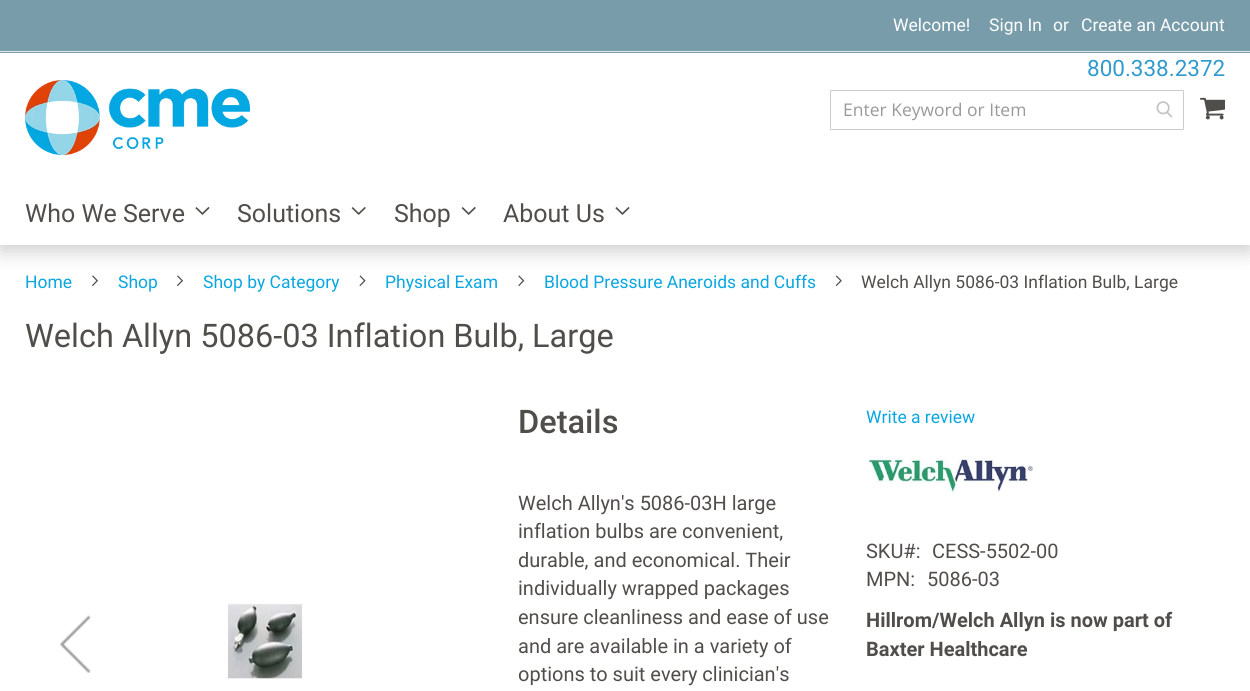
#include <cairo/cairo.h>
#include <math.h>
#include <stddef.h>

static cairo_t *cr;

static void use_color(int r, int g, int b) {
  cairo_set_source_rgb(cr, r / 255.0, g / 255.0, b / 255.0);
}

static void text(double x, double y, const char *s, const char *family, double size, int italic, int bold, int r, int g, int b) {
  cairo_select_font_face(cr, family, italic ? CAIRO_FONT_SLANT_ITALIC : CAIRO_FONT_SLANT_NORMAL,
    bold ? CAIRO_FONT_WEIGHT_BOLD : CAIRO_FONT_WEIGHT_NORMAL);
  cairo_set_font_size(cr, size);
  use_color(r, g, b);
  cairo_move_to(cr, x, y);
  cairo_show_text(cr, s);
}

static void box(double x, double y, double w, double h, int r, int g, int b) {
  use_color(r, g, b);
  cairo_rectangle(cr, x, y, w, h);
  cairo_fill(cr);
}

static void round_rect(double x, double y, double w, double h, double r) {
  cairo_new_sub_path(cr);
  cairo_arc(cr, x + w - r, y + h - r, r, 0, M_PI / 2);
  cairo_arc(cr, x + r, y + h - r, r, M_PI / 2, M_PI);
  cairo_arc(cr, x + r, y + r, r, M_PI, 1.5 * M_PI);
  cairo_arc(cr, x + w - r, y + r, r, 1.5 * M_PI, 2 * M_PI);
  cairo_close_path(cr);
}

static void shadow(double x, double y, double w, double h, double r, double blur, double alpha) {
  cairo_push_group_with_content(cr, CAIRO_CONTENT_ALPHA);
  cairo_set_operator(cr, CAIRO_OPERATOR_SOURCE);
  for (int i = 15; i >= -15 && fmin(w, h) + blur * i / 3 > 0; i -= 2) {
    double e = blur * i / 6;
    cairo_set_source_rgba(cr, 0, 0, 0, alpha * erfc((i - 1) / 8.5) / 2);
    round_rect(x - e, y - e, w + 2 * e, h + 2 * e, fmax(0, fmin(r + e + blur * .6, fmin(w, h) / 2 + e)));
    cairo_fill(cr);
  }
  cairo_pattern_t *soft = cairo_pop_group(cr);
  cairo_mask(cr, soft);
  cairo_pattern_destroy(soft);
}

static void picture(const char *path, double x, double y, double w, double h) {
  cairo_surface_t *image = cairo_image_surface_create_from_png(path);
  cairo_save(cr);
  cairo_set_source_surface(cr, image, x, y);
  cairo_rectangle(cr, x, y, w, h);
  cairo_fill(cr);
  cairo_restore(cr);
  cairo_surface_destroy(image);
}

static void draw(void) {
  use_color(255, 255, 255);
  cairo_paint(cr);
  picture("img_06.png", 92, 275, 6, 12);
  picture("img_06.png", 177, 275, 6, 12);
  picture("img_07.png", 359, 275, 7, 12);
  picture("img_08.png", 518, 275, 7, 11);
  picture("img_09.png", 835, 275, 7, 12);
  cairo_save(cr);
  cairo_rectangle(cr, 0, 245, 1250, 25);
  cairo_clip(cr);
  use_color(204, 204, 204);
  shadow(0, 6, 1250, 245, 0, 9.5, 1);
  cairo_restore(cr);
  box(0, 0, 1250, 53, 120, 156, 170);
  box(0, 51, 1250, 1, 232, 232, 232);
  picture("img_01.png", 25, 80, 225, 75);
  round_rect(830.5, 90.5, 353, 39, 0.5);
  use_color(204, 204, 204);
  cairo_set_line_width(cr, 1);
  cairo_stroke(cr);
  picture("img_02.png", 1156, 101, 17, 17);
  picture("img_03.png", 1200, 97, 25, 23);
  picture("img_04.png", 195, 206, 15, 9);
  picture("img_05.png", 351, 206, 15, 9);
  picture("img_05.png", 461, 206, 15, 9);
  picture("img_04.png", 615, 206, 15, 9);
  picture("img_10.png", 60, 615, 31, 58);
  picture("img_11.png", 226, 603, 77, 76);
  picture("img_12.png", 867, 456, 167, 38);
  text(893, 31, "Welcome!", "Roboto", 17.5, 0, 0, 255, 255, 255);
  text(989, 31, "Sign In", "Roboto", 17.5, 0, 0, 255, 255, 255);
  text(1053, 31, "or", "Roboto", 17.5, 0, 0, 255, 255, 255);
  text(1081, 31, "Create an Account", "Roboto", 17.5, 0, 0, 255, 255, 255);
  text(1087, 76, "800.338.2372", "Roboto", 22.5, 0, 0, 48, 154, 205);
  text(843, 116, "Enter Keyword or Item", "Open Sans", 17.5, 0, 0, 153, 153, 153);
  text(25, 222, "Who We Serve", "Roboto", 25, 0, 0, 80, 78, 74);
  text(237, 222, "Solutions", "Roboto", 25, 0, 0, 80, 78, 74);
  text(394, 222, "Shop", "Roboto", 25, 0, 0, 80, 78, 74);
  text(503, 222, "About Us", "Roboto", 25, 0, 0, 80, 78, 74);
  text(25, 288, "Home", "Roboto", 17.5, 0, 0, 9, 166, 225);
  text(118, 288, "Shop", "Roboto", 17.5, 0, 0, 9, 166, 225);
  text(203, 288, "Shop by Category", "Roboto", 17.5, 0, 0, 9, 166, 225);
  text(385, 288, "Physical Exam", "Roboto", 17.5, 0, 0, 9, 166, 225);
  text(544, 288, "Blood Pressure Aneroids and Cuffs", "Roboto", 17.5, 0, 0, 9, 166, 225);
  text(861, 288, "Welch Allyn 5086-03 Inflation Bulb, Large", "Roboto", 17.5, 0, 0, 80, 78, 74);
  text(25, 347, "Welch Allyn 5086-03 Inflation Bulb, Large", "Roboto", 32.5, 0, 0, 80, 78, 74);
  text(518, 433, "Details", "Roboto Medium", 32.5, 0, 0, 80, 78, 74);
  text(518, 510, "Welch Allyn's 5086-03H large", "Roboto", 20, 0, 0, 80, 78, 74);
  text(518, 538, "inflation bulbs are convenient,", "Roboto", 20, 0, 0, 80, 78, 74);
  text(518, 567, "durable, and economical. Their", "Roboto", 20, 0, 0, 80, 78, 74);
  text(518, 595, "individually wrapped packages", "Roboto", 20, 0, 0, 80, 78, 74);
  text(518, 624, "ensure cleanliness and ease of use", "Roboto", 20, 0, 0, 80, 78, 74);
  text(518, 653, "and are available in a variety of", "Roboto", 20, 0, 0, 80, 78, 74);
  text(518, 681, "options to suit every clinician's", "Roboto", 20, 0, 0, 80, 78, 74);
  text(866, 423, "Write a review", "Roboto", 17.5, 0, 0, 9, 166, 225);
  text(866, 558, "SKU#:", "Roboto", 20, 0, 0, 80, 78, 74);
  text(932, 558, "CESS-5502-00", "Roboto", 20, 0, 0, 80, 78, 74);
  text(866, 586, "MPN:", "Roboto", 20, 0, 0, 80, 78, 74);
  text(927, 586, "5086-03", "Roboto", 20, 0, 0, 80, 78, 74);
  text(866, 627, "Hillrom/Welch Allyn is now part of", "Roboto", 20, 0, 1, 80, 78, 74);
  text(866, 656, "Baxter Healthcare", "Roboto", 20, 0, 1, 80, 78, 74);
}

int main(void) {
  cairo_surface_t *surface = cairo_image_surface_create(CAIRO_FORMAT_RGB24, 1250, 691);
  cr = cairo_create(surface);
  cairo_font_options_t *options = cairo_font_options_create();
  cairo_font_options_set_hint_metrics(options, CAIRO_HINT_METRICS_OFF);
  cairo_font_options_set_hint_style(options, CAIRO_HINT_STYLE_NONE);
  cairo_set_font_options(cr, options);
  cairo_set_miter_limit(cr, 4);
  draw();
  cairo_surface_write_to_png(surface, "out.png");
  cairo_font_options_destroy(options);
  cairo_destroy(cr);
  cairo_surface_destroy(surface);
  return 0;
}
